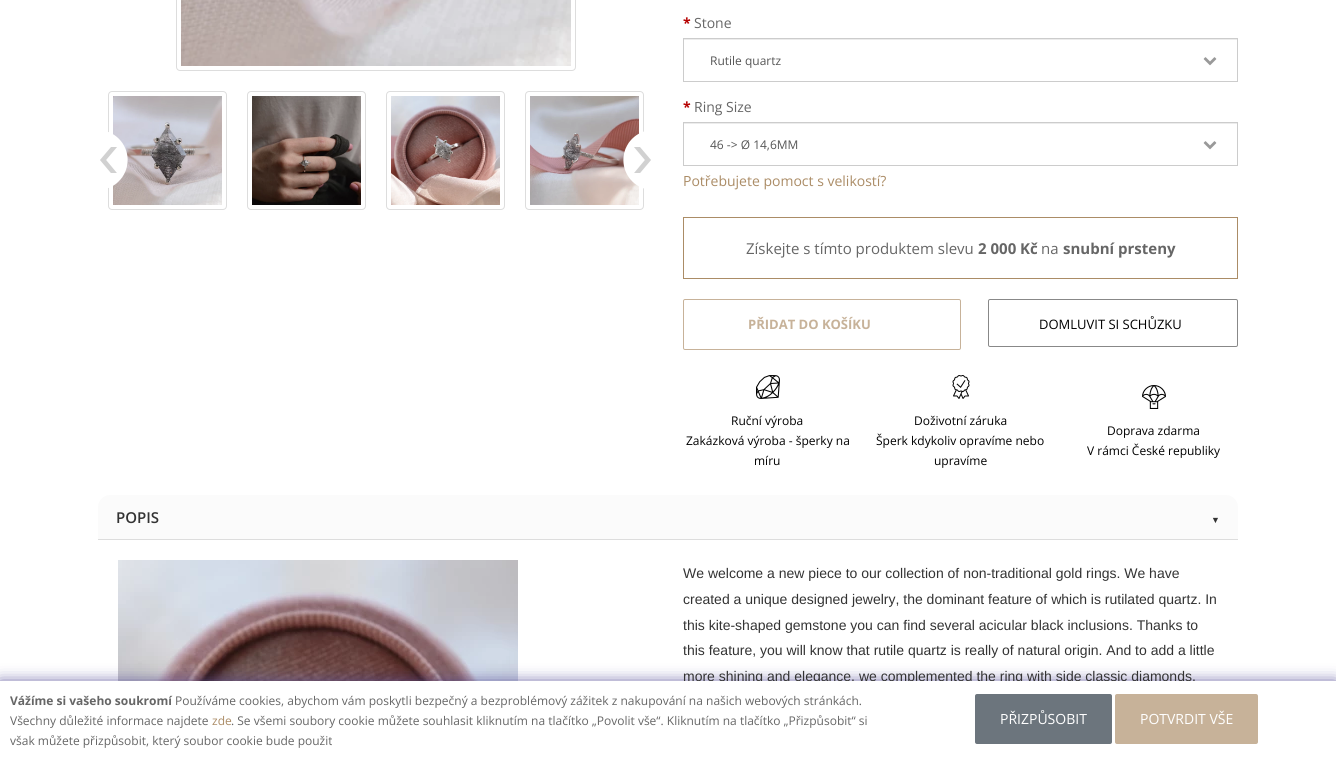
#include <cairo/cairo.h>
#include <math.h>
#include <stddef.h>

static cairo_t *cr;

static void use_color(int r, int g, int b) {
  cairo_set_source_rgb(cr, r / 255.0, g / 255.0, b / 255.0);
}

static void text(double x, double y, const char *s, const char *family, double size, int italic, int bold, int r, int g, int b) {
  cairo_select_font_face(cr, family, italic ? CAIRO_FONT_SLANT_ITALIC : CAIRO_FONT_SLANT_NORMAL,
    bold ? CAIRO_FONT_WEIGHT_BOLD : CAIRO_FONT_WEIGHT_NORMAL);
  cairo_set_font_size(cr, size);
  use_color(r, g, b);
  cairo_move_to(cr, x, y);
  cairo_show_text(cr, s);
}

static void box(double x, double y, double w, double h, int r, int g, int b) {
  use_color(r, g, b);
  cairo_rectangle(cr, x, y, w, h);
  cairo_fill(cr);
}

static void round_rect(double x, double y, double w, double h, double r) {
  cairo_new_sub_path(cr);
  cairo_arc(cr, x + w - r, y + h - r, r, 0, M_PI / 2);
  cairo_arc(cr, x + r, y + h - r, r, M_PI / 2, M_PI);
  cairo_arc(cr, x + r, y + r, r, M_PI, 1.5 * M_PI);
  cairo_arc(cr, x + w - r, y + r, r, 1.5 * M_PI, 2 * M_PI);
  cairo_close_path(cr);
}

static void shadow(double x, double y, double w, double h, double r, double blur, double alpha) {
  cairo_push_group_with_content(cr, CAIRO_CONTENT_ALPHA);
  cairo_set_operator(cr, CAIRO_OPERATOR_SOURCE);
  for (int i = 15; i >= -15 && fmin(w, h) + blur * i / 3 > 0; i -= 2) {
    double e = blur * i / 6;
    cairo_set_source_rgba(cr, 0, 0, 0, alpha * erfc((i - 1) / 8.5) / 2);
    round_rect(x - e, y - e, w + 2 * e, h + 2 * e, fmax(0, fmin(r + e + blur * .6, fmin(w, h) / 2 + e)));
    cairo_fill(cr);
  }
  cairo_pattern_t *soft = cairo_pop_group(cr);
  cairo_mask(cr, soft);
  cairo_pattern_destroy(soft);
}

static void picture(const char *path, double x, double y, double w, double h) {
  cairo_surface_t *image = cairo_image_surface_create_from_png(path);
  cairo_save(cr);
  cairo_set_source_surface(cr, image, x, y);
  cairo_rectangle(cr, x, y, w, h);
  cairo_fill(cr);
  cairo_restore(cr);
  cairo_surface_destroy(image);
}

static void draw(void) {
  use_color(255, 255, 255);
  cairo_paint(cr);
  round_rect(176.5, -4.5, 399, 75, 3.5);
  use_color(221, 221, 221);
  cairo_set_line_width(cr, 1);
  cairo_stroke(cr);
  picture("img_01.png", 181, 0, 390, 66);
  round_rect(108.5, 91.5, 118, 118, 3.5);
  cairo_stroke(cr);
  picture("img_02.png", 113, 96, 109, 109);
  round_rect(247.5, 91.5, 118, 118, 3.5);
  cairo_stroke(cr);
  picture("img_03.png", 252, 96, 109, 109);
  round_rect(386.5, 91.5, 118, 118, 3.5);
  cairo_stroke(cr);
  picture("img_04.png", 391, 96, 109, 109);
  round_rect(525.5, 91.5, 118, 118, 3.5);
  cairo_stroke(cr);
  picture("img_05.png", 530, 96, 109, 109);
  picture("img_06.png", 100, 132, 28, 56);
  picture("img_07.png", 623, 131, 28, 58);
  box(684, 39, 553, 1, 236, 236, 236);
  cairo_rectangle(cr, 683.5, 38.5, 554, 43);
  use_color(204, 204, 204);
  cairo_stroke(cr);
  picture("img_08.png", 1203, 57, 14, 9);
  box(684, 123, 553, 1, 236, 236, 236);
  cairo_rectangle(cr, 683.5, 122.5, 554, 43);
  use_color(204, 204, 204);
  cairo_stroke(cr);
  picture("img_08.png", 1203, 141, 14, 9);
  cairo_rectangle(cr, 683.5, 217.5, 554, 61);
  use_color(171, 140, 102);
  cairo_stroke(cr);
  round_rect(683.5, 299.5, 277, 50, 1.5);
  use_color(199, 178, 153);
  cairo_stroke(cr);
  round_rect(988.5, 299.5, 249, 47, 1.5);
  use_color(136, 136, 136);
  cairo_stroke(cr);
  picture("img_09.png", 756, 375, 24, 24);
  picture("img_10.png", 952, 375, 18, 24);
  picture("img_11.png", 1142, 385, 24, 24);
  use_color(251, 251, 251);
  cairo_new_path(cr);
  cairo_move_to(cr, 110, 495);
  cairo_line_to(cr, 1226, 495);
  cairo_curve_to(cr, 1232.5, 495, 1238, 500.5, 1238, 507);
  cairo_line_to(cr, 1238, 539);
  cairo_line_to(cr, 98, 539);
  cairo_line_to(cr, 98, 507);
  cairo_curve_to(cr, 98, 500.5, 103.5, 495, 110, 495);
  cairo_close_path(cr);
  cairo_fill(cr);
  box(98, 539, 1140, 1, 221, 221, 221);
  picture("img_12.png", 118, 560, 400, 121);
  use_color(83, 75, 150);
  shadow(0, 683, 1336, 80, 0, 8, 1);
  text(683, 28, "*", "Open Sans", 14, 0, 1, 181, 0, 0);
  text(694, 28, "Stone", "Open Sans", 14, 0, 0, 102, 102, 102);
  text(710, 65, "Rutile quartz", "Open Sans", 12, 0, 0, 85, 85, 85);
  text(683, 112, "*", "Open Sans", 14, 0, 1, 181, 0, 0);
  text(694, 112, "Ring Size", "Open Sans", 14, 0, 0, 102, 102, 102);
  text(710, 149, "46 -> Ø 14,6MM", "Open Sans", 12, 0, 0, 85, 85, 85);
  text(683, 186, "Potřebujete pomoct s velikostí?", "Open Sans", 14, 0, 0, 171, 140, 102);
  text(746, 254, "Získejte s tímto produktem slevu", "Open Sans", 15, 0, 0, 102, 102, 102);
  text(978, 254, "2 000 Kč", "Open Sans", 15, 0, 1, 102, 102, 102);
  text(1041, 254, "na", "Open Sans", 15, 0, 0, 102, 102, 102);
  text(1063, 254, "snubní prsteny", "Open Sans", 15, 0, 1, 102, 102, 102);
  text(748, 329, "PŘIDAT DO KOŠÍKU", "Open Sans", 13, 0, 1, 199, 178, 153);
  text(1039, 329, "DOMLUVIT SI SCHŮZKU", "Open Sans", 13, 0, 0, 0, 0, 0);
  text(731, 425, "Ruční výroba", "Open Sans", 12, 0, 0, 0, 0, 0);
  text(686, 445, "Zakázková výroba - šperky na", "Open Sans", 12, 0, 0, 0, 0, 0);
  text(754, 465, "míru", "Open Sans", 12, 0, 0, 0, 0, 0);
  text(914, 425, "Doživotní záruka", "Open Sans", 12, 0, 0, 0, 0, 0);
  text(876, 445, "Šperk kdykoliv opravíme nebo", "Open Sans", 12, 0, 0, 0, 0, 0);
  text(934, 465, "upravíme", "Open Sans", 12, 0, 0, 0, 0, 0);
  text(1107, 435, "Doprava zdarma", "Open Sans", 12, 0, 0, 0, 0, 0);
  text(1087, 455, "V rámci České republiky", "Open Sans", 12, 0, 0, 0, 0, 0);
  text(116, 523, "POPIS", "Open Sans SemiBold", 15, 0, 0, 51, 51, 51);
  text(1211, 523, "▼", "Liberation Sans", 9, 0, 1, 51, 51, 51);
  text(683, 578, "We welcome a new piece to our collection of non-traditional gold rings. We have", "Liberation Sans", 14, 0, 0, 51, 51, 51);
  text(683, 604, "created a unique designed jewelry, the dominant feature of which is rutilated quartz. In", "Liberation Sans", 14, 0, 0, 51, 51, 51);
  text(683, 630, "this kite-shaped gemstone you can find several acicular black inclusions. Thanks to", "Liberation Sans", 14, 0, 0, 51, 51, 51);
  text(683, 655, "this feature, you will know that rutile quartz is really of natural origin. And to add a little", "Liberation Sans", 14, 0, 0, 51, 51, 51);
  text(683, 681, "more shining and elegance, we complemented the ring with side classic diamonds.", "Liberation Sans", 14, 0, 0, 51, 51, 51);
  box(0, 681, 1336, 80, 255, 255, 255);
  text(10, 705, "Vážíme si vašeho soukromí", "Open Sans", 12, 0, 1, 102, 102, 102);
  text(175, 705, "Používáme cookies, abychom vám poskytli bezpečný a bezproblémový zážitek z nakupování na našich webových stránkách.", "Open Sans", 12, 0, 0, 102, 102, 102);
  text(10, 725, "Všechny důležité informace najdete", "Open Sans", 12, 0, 0, 102, 102, 102);
  text(212, 725, "zde", "Open Sans", 12, 0, 0, 171, 140, 102);
  text(231, 725, ". Se všemi soubory cookie můžete souhlasit kliknutím na tlačítko „Povolit vše“. Kliknutím na tlačítko „Přizpůsobit“ si", "Open Sans", 12, 0, 0, 102, 102, 102);
  text(10, 745, "však můžete přizpůsobit, který soubor cookie bude použit", "Open Sans", 12, 0, 0, 102, 102, 102);
  use_color(108, 117, 125);
  round_rect(975, 694, 137, 50, 2);
  cairo_fill(cr);
  text(1000, 724, "PŘIZPŮSOBIT", "Open Sans", 14, 0, 0, 255, 255, 255);
  use_color(199, 178, 153);
  round_rect(1115, 694, 143, 50, 2);
  cairo_fill(cr);
  text(1140, 724, "POTVRDIT VŠE", "Open Sans", 14, 0, 0, 255, 255, 255);
}

int main(void) {
  cairo_surface_t *surface = cairo_image_surface_create(CAIRO_FORMAT_RGB24, 1336, 761);
  cr = cairo_create(surface);
  cairo_font_options_t *options = cairo_font_options_create();
  cairo_font_options_set_hint_metrics(options, CAIRO_HINT_METRICS_OFF);
  cairo_font_options_set_hint_style(options, CAIRO_HINT_STYLE_NONE);
  cairo_set_font_options(cr, options);
  cairo_set_miter_limit(cr, 4);
  draw();
  cairo_surface_write_to_png(surface, "out.png");
  cairo_font_options_destroy(options);
  cairo_destroy(cr);
  cairo_surface_destroy(surface);
  return 0;
}
